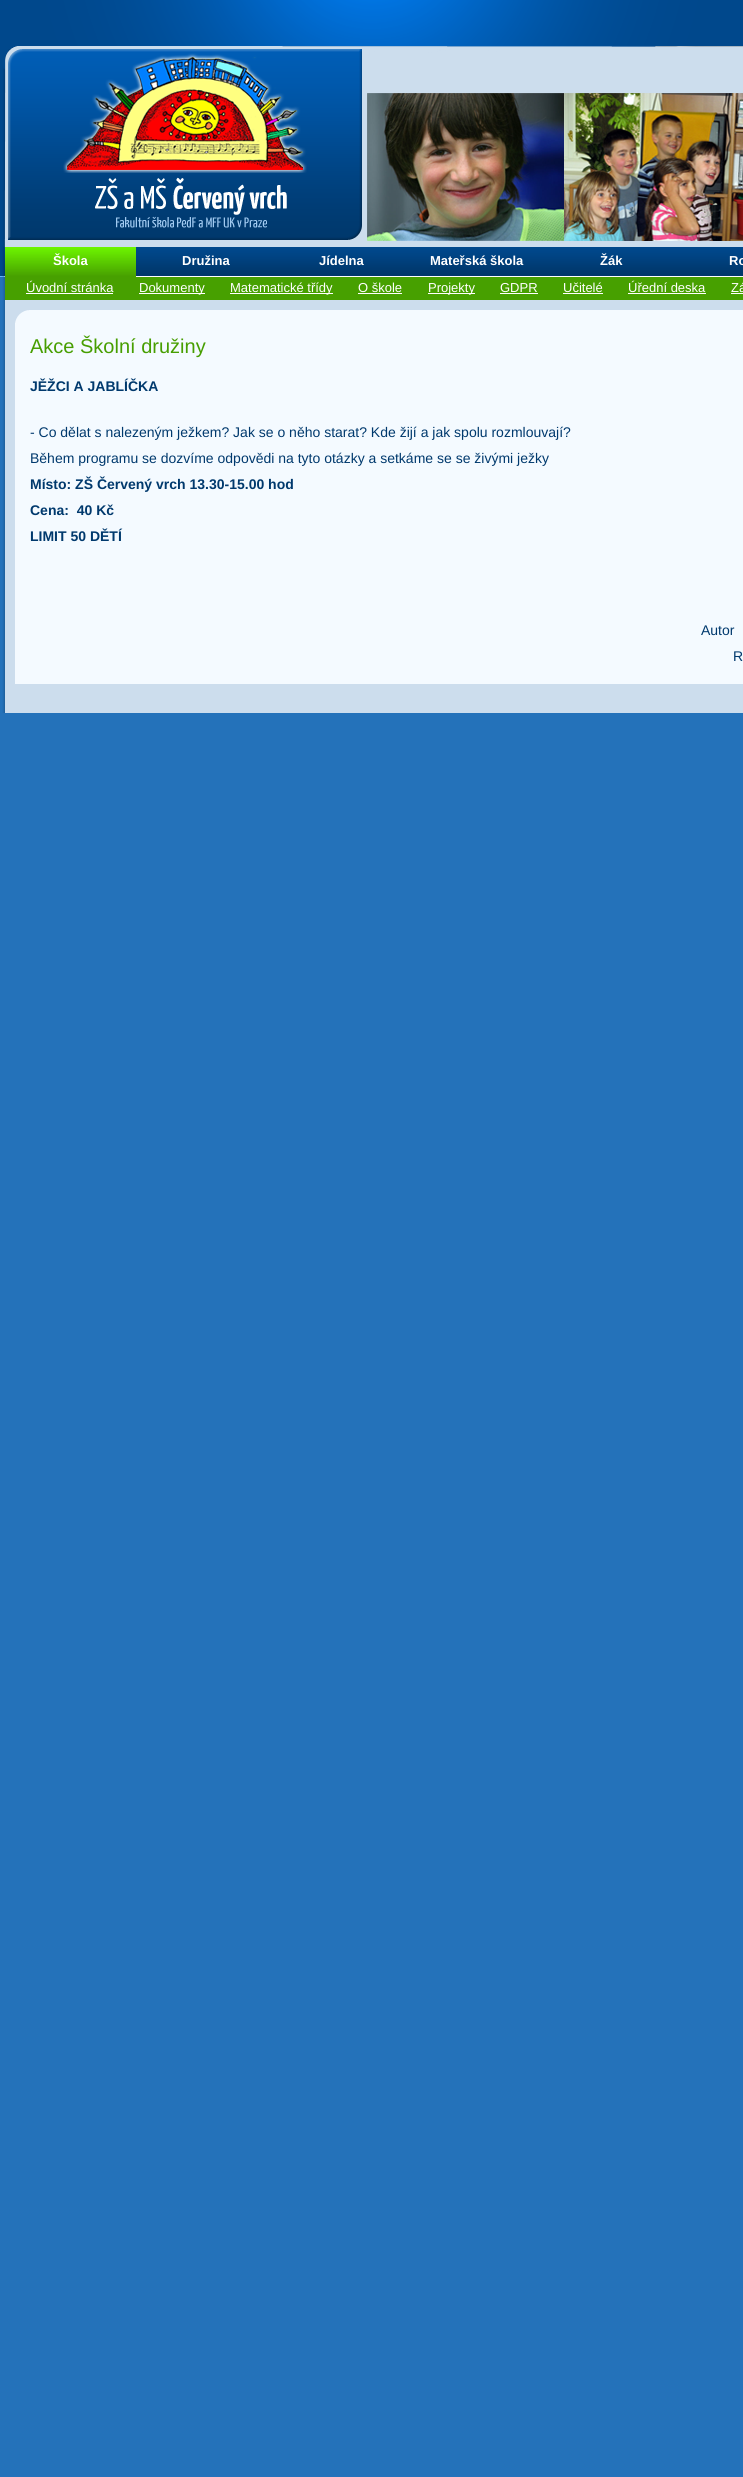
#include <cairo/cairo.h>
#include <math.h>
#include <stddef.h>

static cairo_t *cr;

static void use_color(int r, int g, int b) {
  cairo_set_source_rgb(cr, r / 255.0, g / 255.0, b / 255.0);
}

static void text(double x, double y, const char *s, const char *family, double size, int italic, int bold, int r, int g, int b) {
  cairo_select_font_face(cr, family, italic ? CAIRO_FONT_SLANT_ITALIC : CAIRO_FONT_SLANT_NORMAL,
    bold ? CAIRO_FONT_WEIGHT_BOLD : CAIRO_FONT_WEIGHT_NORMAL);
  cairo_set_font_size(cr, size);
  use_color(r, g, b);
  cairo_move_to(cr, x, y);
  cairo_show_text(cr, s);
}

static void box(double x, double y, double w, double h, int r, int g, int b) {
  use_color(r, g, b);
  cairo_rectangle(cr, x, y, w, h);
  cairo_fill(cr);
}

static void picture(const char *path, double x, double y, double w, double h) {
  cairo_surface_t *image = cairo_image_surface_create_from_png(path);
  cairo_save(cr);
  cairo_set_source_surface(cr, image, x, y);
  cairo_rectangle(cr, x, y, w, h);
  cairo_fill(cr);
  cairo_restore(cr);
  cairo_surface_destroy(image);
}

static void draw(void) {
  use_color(36, 114, 186);
  cairo_paint(cr);
  picture("img_01.png", 0, 0, 743, 46);
  picture("img_02.png", 0, 46, 743, 201);
  picture("img_03.png", 0, 247, 743, 30);
  picture("img_04.png", 5, 247, 131, 30);
  box(5, 277, 738, 23, 71, 160, 0);
  box(26, 293, 87, 1, 255, 255, 255);
  box(139, 293, 66, 1, 255, 255, 255);
  box(230, 293, 103, 1, 255, 255, 255);
  box(358, 293, 44, 1, 255, 255, 255);
  box(428, 293, 47, 1, 255, 255, 255);
  box(500, 293, 38, 1, 255, 255, 255);
  box(563, 293, 40, 1, 255, 255, 255);
  box(628, 293, 78, 1, 255, 255, 255);
  box(731, 293, 12, 1, 255, 255, 255);
  box(5, 300, 738, 413, 204, 221, 237);
  picture("img_05.png", 0, 277, 5, 436);
  box(15, 310, 728, 374, 244, 250, 255);
  picture("img_06.png", 15, 310, 14, 13);
  text(53, 265, "Škola", "Liberation Sans", 13, 0, 1, 255, 255, 255);
  text(182, 265, "Družina", "Liberation Sans", 13, 0, 1, 255, 255, 255);
  text(319, 265, "Jídelna", "Liberation Sans", 13, 0, 1, 255, 255, 255);
  text(430, 265, "Mateřská škola", "Liberation Sans", 13, 0, 1, 255, 255, 255);
  text(600, 265, "Žák", "Liberation Sans", 13, 0, 1, 255, 255, 255);
  text(729, 265, "Ro", "Liberation Sans", 13, 0, 1, 255, 255, 255);
  text(26, 292, "Úvodní stránka", "Liberation Sans", 13, 0, 0, 255, 255, 255);
  text(139, 292, "Dokumenty", "Liberation Sans", 13, 0, 0, 255, 255, 255);
  text(230, 292, "Matematické třídy", "Liberation Sans", 13, 0, 0, 255, 255, 255);
  text(358, 292, "O škole", "Liberation Sans", 13, 0, 0, 255, 255, 255);
  text(428, 292, "Projekty", "Liberation Sans", 13, 0, 0, 255, 255, 255);
  text(500, 292, "GDPR", "Liberation Sans", 13, 0, 0, 255, 255, 255);
  text(563, 292, "Učitelé", "Liberation Sans", 13, 0, 0, 255, 255, 255);
  text(628, 292, "Úřední deska", "Liberation Sans", 13, 0, 0, 255, 255, 255);
  text(731, 292, "Zá", "Liberation Sans", 13, 0, 0, 255, 255, 255);
  text(30, 353, "Akce Školní družiny", "Liberation Sans", 20, 0, 0, 71, 158, 1);
  text(30, 391, "JĚŽCI A JABLÍČKA", "Liberation Sans", 14, 0, 1, 0, 57, 109);
  text(30, 437, "- Co dělat s nalezeným ježkem? Jak se o něho starat? Kde žijí a jak spolu rozmlouvají?", "Liberation Sans", 14, 0, 0, 0, 57, 109);
  text(30, 463, "Během programu se dozvíme odpovědi na tyto otázky a setkáme se se živými ježky", "Liberation Sans", 14, 0, 0, 0, 57, 109);
  text(30, 489, "Místo: ZŠ Červený vrch 13.30-15.00 hod", "Liberation Sans", 14, 0, 1, 0, 57, 109);
  text(30, 515, "Cena:  40 Kč", "Liberation Sans", 14, 0, 1, 0, 57, 109);
  text(30, 541, "LIMIT 50 DĚTÍ", "Liberation Sans", 14, 0, 1, 0, 57, 109);
  text(701, 635, "Autor", "Liberation Sans", 14, 0, 0, 0, 57, 109);
  text(733, 661, "R", "Liberation Sans", 14, 0, 0, 0, 57, 109);
}

int main(void) {
  cairo_surface_t *surface = cairo_image_surface_create(CAIRO_FORMAT_RGB24, 743, 2477);
  cr = cairo_create(surface);
  cairo_font_options_t *options = cairo_font_options_create();
  cairo_font_options_set_hint_metrics(options, CAIRO_HINT_METRICS_OFF);
  cairo_font_options_set_hint_style(options, CAIRO_HINT_STYLE_NONE);
  cairo_set_font_options(cr, options);
  cairo_set_miter_limit(cr, 4);
  draw();
  cairo_surface_write_to_png(surface, "out.png");
  cairo_font_options_destroy(options);
  cairo_destroy(cr);
  cairo_surface_destroy(surface);
  return 0;
}
